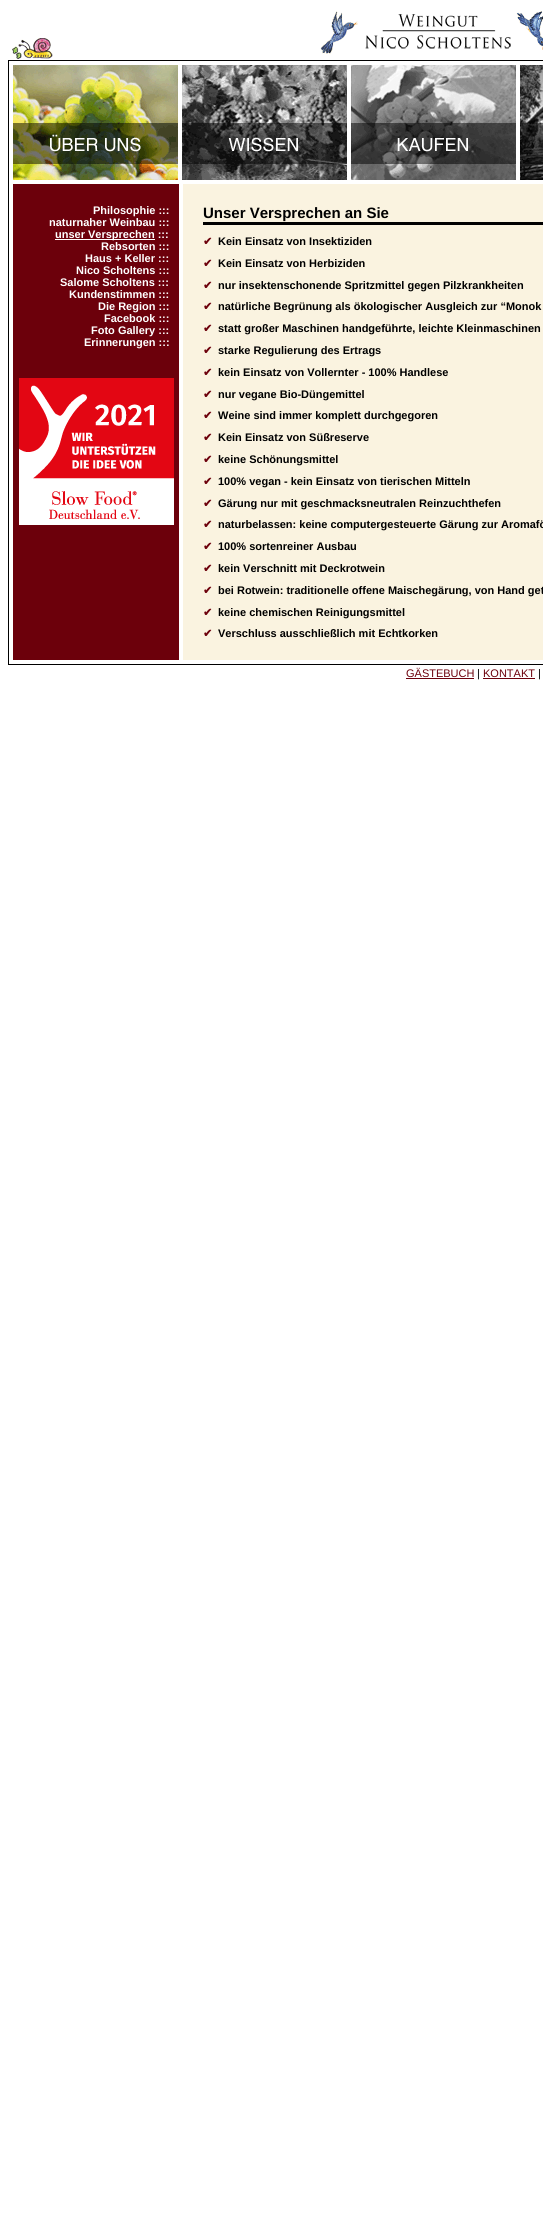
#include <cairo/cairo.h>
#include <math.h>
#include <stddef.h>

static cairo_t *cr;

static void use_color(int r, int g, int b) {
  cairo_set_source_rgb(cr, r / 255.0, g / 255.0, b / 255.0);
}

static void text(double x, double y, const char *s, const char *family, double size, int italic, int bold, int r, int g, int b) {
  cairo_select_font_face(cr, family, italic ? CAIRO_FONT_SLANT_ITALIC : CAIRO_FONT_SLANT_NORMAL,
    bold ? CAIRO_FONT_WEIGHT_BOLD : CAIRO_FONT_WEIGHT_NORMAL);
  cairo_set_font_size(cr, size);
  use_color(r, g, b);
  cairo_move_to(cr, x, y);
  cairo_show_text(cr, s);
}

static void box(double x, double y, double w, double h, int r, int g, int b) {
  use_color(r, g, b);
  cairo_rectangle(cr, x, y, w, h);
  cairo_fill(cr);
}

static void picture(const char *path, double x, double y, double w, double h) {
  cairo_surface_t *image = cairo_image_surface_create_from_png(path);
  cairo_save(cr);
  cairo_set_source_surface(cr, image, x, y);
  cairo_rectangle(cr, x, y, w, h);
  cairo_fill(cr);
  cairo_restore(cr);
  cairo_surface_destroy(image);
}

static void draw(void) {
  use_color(255, 255, 255);
  cairo_paint(cr);
  picture("img_01.png", 12, 38, 41, 21);
  picture("img_02.png", 320, 11, 38, 43);
  picture("img_03.png", 365, 14, 146, 35);
  picture("img_04.png", 516, 11, 27, 39);
  cairo_rectangle(cr, 8.5, 60.5, 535, 604);
  use_color(0, 0, 0);
  cairo_set_line_width(cr, 1);
  cairo_stroke(cr);
  picture("img_05.png", 13, 65, 165, 115);
  picture("img_06.png", 182, 65, 165, 115);
  picture("img_07.png", 351, 65, 165, 115);
  picture("img_08.png", 520, 65, 23, 115);
  box(13, 184, 166, 476, 108, 0, 11);
  box(55, 239, 100, 1, 255, 255, 255);
  picture("img_09.png", 19, 378, 155, 147);
  box(183, 184, 360, 476, 250, 243, 224);
  box(203, 222, 340, 3, 0, 0, 0);
  box(406, 678, 68, 1, 108, 0, 11);
  box(483, 678, 52, 1, 108, 0, 11);
  text(93, 214, "Philosophie :::", "Liberation Sans", 11, 0, 1, 255, 255, 255);
  text(49, 226, "naturnaher Weinbau :::", "Liberation Sans", 11, 0, 1, 255, 255, 255);
  text(55, 238, "unser Versprechen :::", "Liberation Sans", 11, 0, 1, 255, 255, 255);
  text(101, 250, "Rebsorten :::", "Liberation Sans", 11, 0, 1, 255, 255, 255);
  text(85, 262, "Haus + Keller :::", "Liberation Sans", 11, 0, 1, 255, 255, 255);
  text(76, 274, "Nico Scholtens :::", "Liberation Sans", 11, 0, 1, 255, 255, 255);
  text(60, 286, "Salome Scholtens :::", "Liberation Sans", 11, 0, 1, 255, 255, 255);
  text(69, 298, "Kundenstimmen :::", "Liberation Sans", 11, 0, 1, 255, 255, 255);
  text(98, 310, "Die Region :::", "Liberation Sans", 11, 0, 1, 255, 255, 255);
  text(104, 322, "Facebook :::", "Liberation Sans", 11, 0, 1, 255, 255, 255);
  text(91, 334, "Foto Gallery :::", "Liberation Sans", 11, 0, 1, 255, 255, 255);
  text(84, 346, "Erinnerungen :::", "Liberation Sans", 11, 0, 1, 255, 255, 255);
  text(203, 218, "Unser Versprechen an Sie", "Liberation Sans", 15, 0, 1, 0, 0, 0);
  text(203, 245, "✔", "DejaVu Sans", 11, 0, 1, 108, 0, 11);
  text(218, 245, "Kein Einsatz von Insektiziden", "Liberation Sans", 11, 0, 1, 0, 0, 0);
  text(203, 267, "✔", "DejaVu Sans", 11, 0, 1, 108, 0, 11);
  text(218, 267, "Kein Einsatz von Herbiziden", "Liberation Sans", 11, 0, 1, 0, 0, 0);
  text(203, 289, "✔", "DejaVu Sans", 11, 0, 1, 108, 0, 11);
  text(218, 289, "nur insektenschonende Spritzmittel gegen Pilzkrankheiten", "Liberation Sans", 11, 0, 1, 0, 0, 0);
  text(203, 310, "✔", "DejaVu Sans", 11, 0, 1, 108, 0, 11);
  text(218, 310, "natürliche Begrünung als ökologischer Ausgleich zur “Monok", "Liberation Sans", 11, 0, 1, 0, 0, 0);
  text(203, 332, "✔", "DejaVu Sans", 11, 0, 1, 108, 0, 11);
  text(218, 332, "statt großer Maschinen handgeführte, leichte Kleinmaschinen", "Liberation Sans", 11, 0, 1, 0, 0, 0);
  text(203, 354, "✔", "DejaVu Sans", 11, 0, 1, 108, 0, 11);
  text(218, 354, "starke Regulierung des Ertrags", "Liberation Sans", 11, 0, 1, 0, 0, 0);
  text(203, 376, "✔", "DejaVu Sans", 11, 0, 1, 108, 0, 11);
  text(218, 376, "kein Einsatz von Vollernter - 100% Handlese", "Liberation Sans", 11, 0, 1, 0, 0, 0);
  text(203, 398, "✔", "DejaVu Sans", 11, 0, 1, 108, 0, 11);
  text(218, 398, "nur vegane Bio-Düngemittel", "Liberation Sans", 11, 0, 1, 0, 0, 0);
  text(203, 419, "✔", "DejaVu Sans", 11, 0, 1, 108, 0, 11);
  text(218, 419, "Weine sind immer komplett durchgegoren", "Liberation Sans", 11, 0, 1, 0, 0, 0);
  text(203, 441, "✔", "DejaVu Sans", 11, 0, 1, 108, 0, 11);
  text(218, 441, "Kein Einsatz von Süßreserve", "Liberation Sans", 11, 0, 1, 0, 0, 0);
  text(203, 463, "✔", "DejaVu Sans", 11, 0, 1, 108, 0, 11);
  text(218, 463, "keine Schönungsmittel", "Liberation Sans", 11, 0, 1, 0, 0, 0);
  text(203, 485, "✔", "DejaVu Sans", 11, 0, 1, 108, 0, 11);
  text(218, 485, "100% vegan - kein Einsatz von tierischen Mitteln", "Liberation Sans", 11, 0, 1, 0, 0, 0);
  text(203, 507, "✔", "DejaVu Sans", 11, 0, 1, 108, 0, 11);
  text(218, 507, "Gärung nur mit geschmacksneutralen Reinzuchthefen", "Liberation Sans", 11, 0, 1, 0, 0, 0);
  text(203, 528, "✔", "DejaVu Sans", 11, 0, 1, 108, 0, 11);
  text(218, 528, "naturbelassen: keine computergesteuerte Gärung zur Aromafö", "Liberation Sans", 11, 0, 1, 0, 0, 0);
  text(203, 550, "✔", "DejaVu Sans", 11, 0, 1, 108, 0, 11);
  text(218, 550, "100% sortenreiner Ausbau", "Liberation Sans", 11, 0, 1, 0, 0, 0);
  text(203, 572, "✔", "DejaVu Sans", 11, 0, 1, 108, 0, 11);
  text(218, 572, "kein Verschnitt mit Deckrotwein", "Liberation Sans", 11, 0, 1, 0, 0, 0);
  text(203, 594, "✔", "DejaVu Sans", 11, 0, 1, 108, 0, 11);
  text(218, 594, "bei Rotwein: traditionelle offene Maischegärung, von Hand get", "Liberation Sans", 11, 0, 1, 0, 0, 0);
  text(203, 616, "✔", "DejaVu Sans", 11, 0, 1, 108, 0, 11);
  text(218, 616, "keine chemischen Reinigungsmittel", "Liberation Sans", 11, 0, 1, 0, 0, 0);
  text(203, 637, "✔", "DejaVu Sans", 11, 0, 1, 108, 0, 11);
  text(218, 637, "Verschluss ausschließlich mit Echtkorken", "Liberation Sans", 11, 0, 1, 0, 0, 0);
  text(406, 677, "GÄSTEBUCH", "Liberation Sans", 11, 0, 0, 108, 0, 11);
  text(477, 677, "|", "Liberation Sans", 11, 0, 0, 0, 0, 0);
  text(483, 677, "KONTAKT", "Liberation Sans", 11, 0, 0, 108, 0, 11);
  text(538, 677, "|", "Liberation Sans", 11, 0, 0, 0, 0, 0);
}

int main(void) {
  cairo_surface_t *surface = cairo_image_surface_create(CAIRO_FORMAT_RGB24, 543, 2218);
  cr = cairo_create(surface);
  cairo_font_options_t *options = cairo_font_options_create();
  cairo_font_options_set_hint_metrics(options, CAIRO_HINT_METRICS_OFF);
  cairo_font_options_set_hint_style(options, CAIRO_HINT_STYLE_NONE);
  cairo_set_font_options(cr, options);
  cairo_set_miter_limit(cr, 4);
  draw();
  cairo_surface_write_to_png(surface, "out.png");
  cairo_font_options_destroy(options);
  cairo_destroy(cr);
  cairo_surface_destroy(surface);
  return 0;
}
